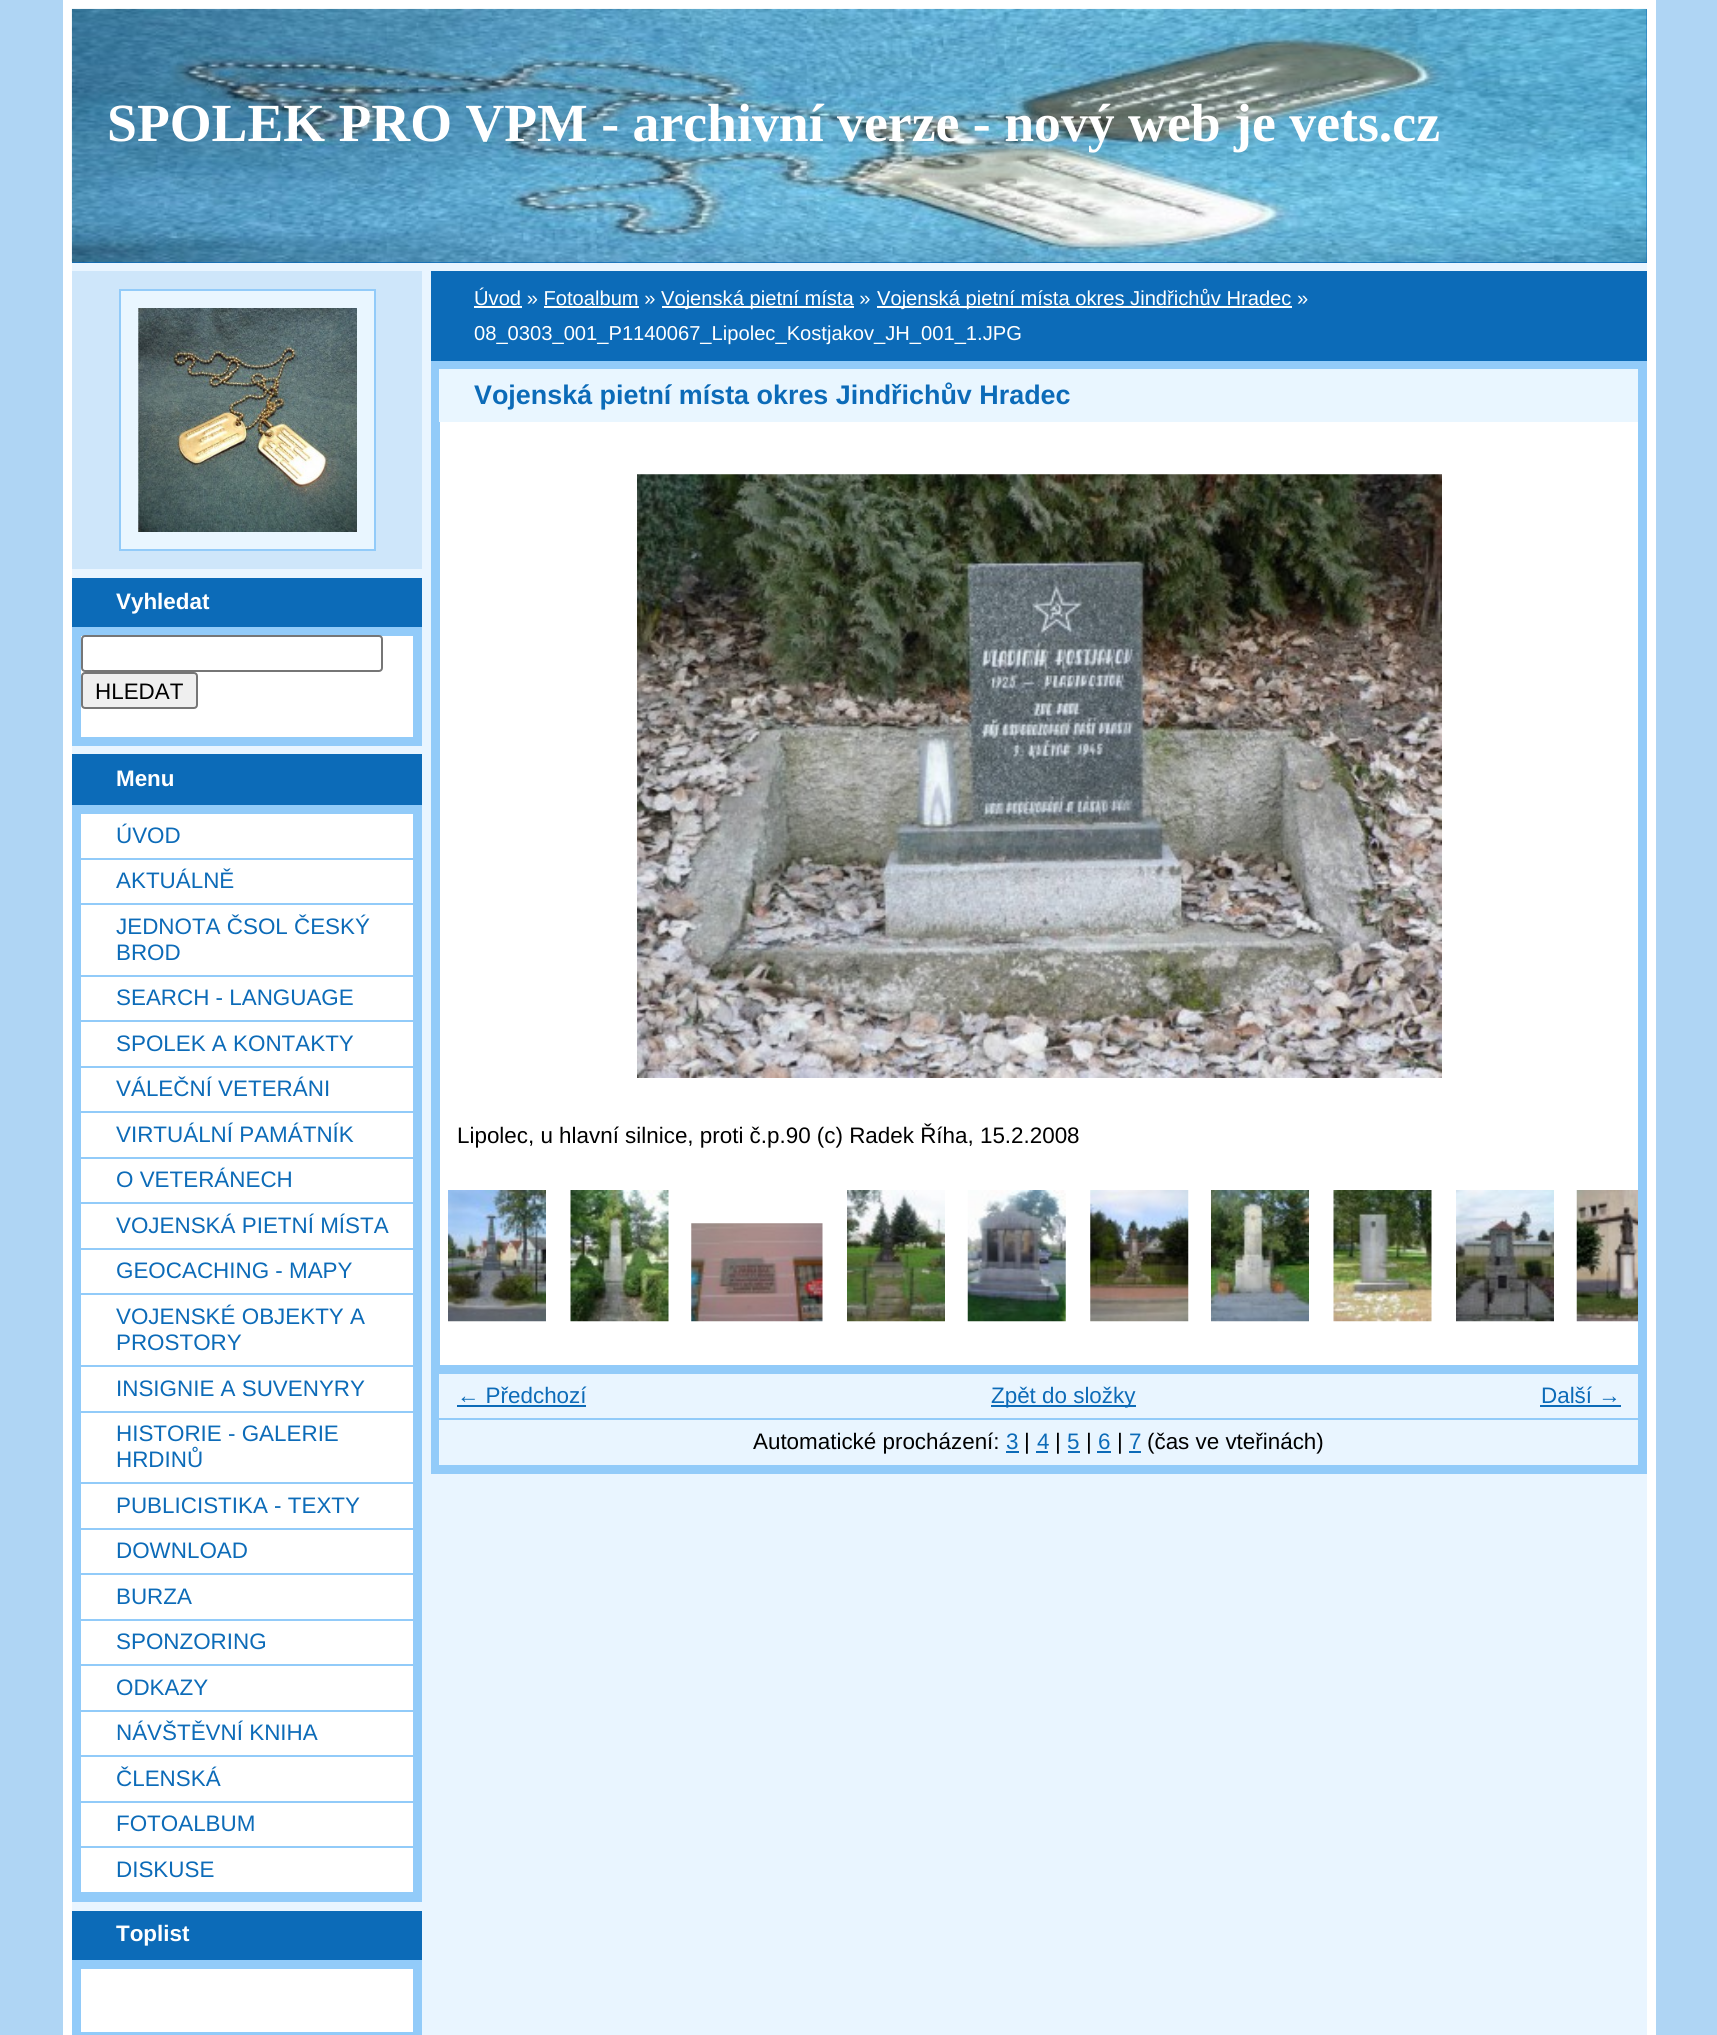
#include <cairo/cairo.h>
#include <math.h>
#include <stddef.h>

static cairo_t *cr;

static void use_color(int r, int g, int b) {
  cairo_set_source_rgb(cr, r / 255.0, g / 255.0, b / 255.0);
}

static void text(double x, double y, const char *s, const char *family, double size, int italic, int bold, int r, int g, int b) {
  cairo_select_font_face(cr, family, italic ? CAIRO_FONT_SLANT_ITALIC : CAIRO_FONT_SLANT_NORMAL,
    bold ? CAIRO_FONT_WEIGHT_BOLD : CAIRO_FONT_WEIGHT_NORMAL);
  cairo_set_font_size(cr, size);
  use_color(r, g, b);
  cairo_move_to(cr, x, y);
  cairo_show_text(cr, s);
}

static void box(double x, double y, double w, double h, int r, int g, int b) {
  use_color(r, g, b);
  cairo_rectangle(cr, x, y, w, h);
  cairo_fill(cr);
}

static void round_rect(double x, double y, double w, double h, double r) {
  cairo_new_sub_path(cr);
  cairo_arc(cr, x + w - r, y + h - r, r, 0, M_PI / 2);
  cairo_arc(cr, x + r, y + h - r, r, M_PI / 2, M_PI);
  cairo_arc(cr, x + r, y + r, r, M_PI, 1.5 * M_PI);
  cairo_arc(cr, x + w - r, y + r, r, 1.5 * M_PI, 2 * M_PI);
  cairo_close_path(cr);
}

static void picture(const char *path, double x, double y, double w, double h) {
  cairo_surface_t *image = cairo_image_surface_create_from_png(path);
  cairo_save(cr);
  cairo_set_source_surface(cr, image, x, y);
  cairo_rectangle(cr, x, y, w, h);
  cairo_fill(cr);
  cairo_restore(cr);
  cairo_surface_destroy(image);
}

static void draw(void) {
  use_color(175, 213, 244);
  cairo_paint(cr);
  box(72, 263, 1575, 1772, 233, 245, 255);
  cairo_rectangle(cr, 67.5, 4.5, 1584, 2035);
  use_color(255, 255, 255);
  cairo_set_line_width(cr, 9);
  cairo_stroke(cr);
  box(72, 9, 1575, 254, 12, 107, 184);
  picture("img_01.png", 71, 8, 1576, 255);
  box(72, 271, 350, 298, 206, 230, 250);
  use_color(233, 246, 255);
  cairo_rectangle(cr, 120, 290, 255, 260);
  cairo_fill_preserve(cr);
  use_color(146, 203, 249);
  cairo_set_line_width(cr, 2);
  cairo_stroke(cr);
  picture("img_02.png", 138, 308, 219, 224);
  box(72, 578, 350, 49, 12, 107, 184);
  use_color(255, 255, 255);
  cairo_rectangle(cr, 76.5, 631.5, 341, 110);
  cairo_fill_preserve(cr);
  use_color(146, 203, 249);
  cairo_set_line_width(cr, 9);
  cairo_stroke(cr);
  use_color(255, 255, 255);
  round_rect(82, 636, 300, 35, 3);
  cairo_fill_preserve(cr);
  use_color(118, 118, 118);
  cairo_set_line_width(cr, 2);
  cairo_stroke(cr);
  use_color(239, 239, 239);
  round_rect(82, 673, 115, 35, 3);
  cairo_fill_preserve(cr);
  use_color(118, 118, 118);
  cairo_stroke(cr);
  box(72, 754, 350, 51, 12, 107, 184);
  box(81, 814, 332, 1078, 255, 255, 255);
  cairo_rectangle(cr, 76.5, 809.5, 341, 1088);
  use_color(146, 203, 249);
  cairo_set_line_width(cr, 9);
  cairo_stroke(cr);
  box(81, 858, 332, 2, 146, 203, 249);
  box(81, 903, 332, 2, 146, 203, 249);
  box(81, 975, 332, 2, 146, 203, 249);
  box(81, 1020, 332, 2, 146, 203, 249);
  box(81, 1066, 332, 2, 146, 203, 249);
  box(81, 1111, 332, 2, 146, 203, 249);
  box(81, 1157, 332, 2, 146, 203, 249);
  box(81, 1202, 332, 2, 146, 203, 249);
  box(81, 1248, 332, 2, 146, 203, 249);
  box(81, 1293, 332, 2, 146, 203, 249);
  box(81, 1365, 332, 2, 146, 203, 249);
  box(81, 1411, 332, 2, 146, 203, 249);
  box(81, 1482, 332, 2, 146, 203, 249);
  box(81, 1528, 332, 2, 146, 203, 249);
  box(81, 1573, 332, 2, 146, 203, 249);
  box(81, 1619, 332, 2, 146, 203, 249);
  box(81, 1664, 332, 2, 146, 203, 249);
  box(81, 1710, 332, 2, 146, 203, 249);
  box(81, 1755, 332, 2, 146, 203, 249);
  box(81, 1801, 332, 2, 146, 203, 249);
  box(81, 1846, 332, 2, 146, 203, 249);
  box(81, 1892, 332, 1, 146, 203, 249);
  box(72, 1911, 350, 49, 12, 107, 184);
  use_color(255, 255, 255);
  cairo_rectangle(cr, 76.5, 1964.5, 341, 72);
  cairo_fill_preserve(cr);
  use_color(146, 203, 249);
  cairo_stroke(cr);
  box(431, 271, 1216, 90, 12, 107, 184);
  box(474, 306, 48, 2, 255, 255, 255);
  box(662, 306, 192, 2, 255, 255, 255);
  box(877, 306, 415, 2, 255, 255, 255);
  box(544, 306, 95, 2, 255, 255, 255);
  box(440, 422, 1198, 943, 255, 255, 255);
  cairo_rectangle(cr, 435.5, 365.5, 1207, 1104);
  use_color(146, 203, 249);
  cairo_stroke(cr);
  box(439, 369, 1199, 53, 233, 246, 255);
  picture("img_03.png", 637, 474, 805, 604);
  picture("img_04.png", 448, 1190, 98, 132);
  picture("img_05.png", 570, 1190, 99, 132);
  picture("img_06.png", 691, 1223, 132, 99);
  picture("img_07.png", 847, 1190, 98, 132);
  picture("img_08.png", 967, 1190, 99, 132);
  picture("img_09.png", 1090, 1190, 99, 132);
  picture("img_10.png", 1211, 1190, 98, 132);
  picture("img_11.png", 1333, 1190, 99, 132);
  picture("img_12.png", 1456, 1190, 98, 132);
  picture("img_13.png", 1576, 1190, 62, 132);
  box(439, 1374, 1, 44, 233, 246, 255);
  box(440, 1365, 1198, 9, 146, 203, 249);
  box(457, 1405, 129, 2, 12, 107, 184);
  box(991, 1405, 145, 2, 12, 107, 184);
  box(1540, 1405, 81, 2, 12, 107, 184);
  box(439, 1420, 1, 45, 233, 246, 255);
  box(439, 1418, 1199, 2, 146, 203, 249);
  box(1006, 1451, 13, 2, 12, 107, 184);
  box(1036, 1451, 12, 2, 12, 107, 184);
  box(1068, 1451, 12, 2, 12, 107, 184);
  box(1097, 1451, 14, 2, 12, 107, 184);
  box(1129, 1451, 12, 2, 12, 107, 184);
  text(107, 141, "SPOLEK PRO VPM - archivní verze - nový web je vets.cz", "Liberation Serif", 53.75, 0, 1, 255, 255, 255);
  text(116, 609, "Vyhledat", "Liberation Sans", 22.4, 0, 1, 255, 255, 255);
  text(95, 699, "HLEDAT", "Liberation Sans", 22.4, 0, 0, 0, 0, 0);
  text(116, 786, "Menu", "Liberation Sans", 22.4, 0, 1, 255, 255, 255);
  text(116, 843, "ÚVOD", "Liberation Sans", 22.4, 0, 0, 12, 107, 184);
  text(116, 888, "AKTUÁLNĚ", "Liberation Sans", 22.4, 0, 0, 12, 107, 184);
  text(116, 934, "JEDNOTA ČSOL ČESKÝ", "Liberation Sans", 22.4, 0, 0, 12, 107, 184);
  text(116, 960, "BROD", "Liberation Sans", 22.4, 0, 0, 12, 107, 184);
  text(116, 1005, "SEARCH - LANGUAGE", "Liberation Sans", 22.4, 0, 0, 12, 107, 184);
  text(116, 1051, "SPOLEK A KONTAKTY", "Liberation Sans", 22.4, 0, 0, 12, 107, 184);
  text(116, 1096, "VÁLEČNÍ VETERÁNI", "Liberation Sans", 22.4, 0, 0, 12, 107, 184);
  text(116, 1142, "VIRTUÁLNÍ PAMÁTNÍK", "Liberation Sans", 22.4, 0, 0, 12, 107, 184);
  text(116, 1187, "O VETERÁNECH", "Liberation Sans", 22.4, 0, 0, 12, 107, 184);
  text(116, 1233, "VOJENSKÁ PIETNÍ MÍSTA", "Liberation Sans", 22.4, 0, 0, 12, 107, 184);
  text(116, 1278, "GEOCACHING - MAPY", "Liberation Sans", 22.4, 0, 0, 12, 107, 184);
  text(116, 1324, "VOJENSKÉ OBJEKTY A", "Liberation Sans", 22.4, 0, 0, 12, 107, 184);
  text(116, 1350, "PROSTORY", "Liberation Sans", 22.4, 0, 0, 12, 107, 184);
  text(116, 1396, "INSIGNIE A SUVENYRY", "Liberation Sans", 22.4, 0, 0, 12, 107, 184);
  text(116, 1441, "HISTORIE - GALERIE", "Liberation Sans", 22.4, 0, 0, 12, 107, 184);
  text(116, 1467, "HRDINŮ", "Liberation Sans", 22.4, 0, 0, 12, 107, 184);
  text(116, 1513, "PUBLICISTIKA - TEXTY", "Liberation Sans", 22.4, 0, 0, 12, 107, 184);
  text(116, 1558, "DOWNLOAD", "Liberation Sans", 22.4, 0, 0, 12, 107, 184);
  text(116, 1604, "BURZA", "Liberation Sans", 22.4, 0, 0, 12, 107, 184);
  text(116, 1649, "SPONZORING", "Liberation Sans", 22.4, 0, 0, 12, 107, 184);
  text(116, 1695, "ODKAZY", "Liberation Sans", 22.4, 0, 0, 12, 107, 184);
  text(116, 1740, "NÁVŠTĚVNÍ KNIHA", "Liberation Sans", 22.4, 0, 0, 12, 107, 184);
  text(116, 1786, "ČLENSKÁ", "Liberation Sans", 22.4, 0, 0, 12, 107, 184);
  text(116, 1831, "FOTOALBUM", "Liberation Sans", 22.4, 0, 0, 12, 107, 184);
  text(116, 1877, "DISKUSE", "Liberation Sans", 22.4, 0, 0, 12, 107, 184);
  text(116, 1941, "Toplist", "Liberation Sans", 22.4, 0, 1, 255, 255, 255);
  text(474, 305, "Úvod » Fotoalbum »", "Liberation Sans", 20.15, 0, 0, 255, 255, 255);
  text(661, 305, "Vojenská pietní místa »", "Liberation Sans", 20.15, 0, 0, 255, 255, 255);
  text(877, 305, "Vojenská pietní místa okres Jindřichův Hradec »", "Liberation Sans", 20.15, 0, 0, 255, 255, 255);
  text(474, 340, "08_0303_001_P1140067_Lipolec_Kostjakov_JH_001_1.JPG", "Liberation Sans", 20.15, 0, 0, 255, 255, 255);
  text(474, 404, "Vojenská pietní místa okres Jindřichův Hradec", "Liberation Sans", 26.9, 0, 1, 12, 107, 184);
  text(457, 1143, "Lipolec, u hlavní silnice, proti č.p.90 (c) Radek Říha, 15.2.2008", "Liberation Sans", 22.4, 0, 0, 0, 0, 0);
  text(457, 1403, "← Předchozí", "Liberation Sans", 22.4, 0, 0, 12, 107, 184);
  text(991, 1403, "Zpět do složky", "Liberation Sans", 22.4, 0, 0, 12, 107, 184);
  text(1541, 1403, "Další →", "Liberation Sans", 22.4, 0, 0, 12, 107, 184);
  text(753, 1449, "Automatické procházení:", "Liberation Sans", 22.4, 0, 0, 0, 0, 0);
  text(1006, 1449, "3", "Liberation Sans", 22.4, 0, 0, 12, 107, 184);
  text(1024, 1449, "|", "Liberation Sans", 22.4, 0, 0, 0, 0, 0);
  text(1037, 1449, "4", "Liberation Sans", 22.4, 0, 0, 12, 107, 184);
  text(1055, 1449, "|", "Liberation Sans", 22.4, 0, 0, 0, 0, 0);
  text(1067, 1449, "5", "Liberation Sans", 22.4, 0, 0, 12, 107, 184);
  text(1086, 1449, "|", "Liberation Sans", 22.4, 0, 0, 0, 0, 0);
  text(1098, 1449, "6", "Liberation Sans", 22.4, 0, 0, 12, 107, 184);
  text(1117, 1449, "|", "Liberation Sans", 22.4, 0, 0, 0, 0, 0);
  text(1129, 1449, "7", "Liberation Sans", 22.4, 0, 0, 12, 107, 184);
  text(1147, 1449, "(čas ve vteřinách)", "Liberation Sans", 22.4, 0, 0, 0, 0, 0);
}

int main(void) {
  cairo_surface_t *surface = cairo_image_surface_create(CAIRO_FORMAT_RGB24, 1717, 2035);
  cr = cairo_create(surface);
  cairo_font_options_t *options = cairo_font_options_create();
  cairo_font_options_set_hint_metrics(options, CAIRO_HINT_METRICS_OFF);
  cairo_font_options_set_hint_style(options, CAIRO_HINT_STYLE_NONE);
  cairo_set_font_options(cr, options);
  cairo_set_miter_limit(cr, 4);
  draw();
  cairo_surface_write_to_png(surface, "out.png");
  cairo_font_options_destroy(options);
  cairo_destroy(cr);
  cairo_surface_destroy(surface);
  return 0;
}
